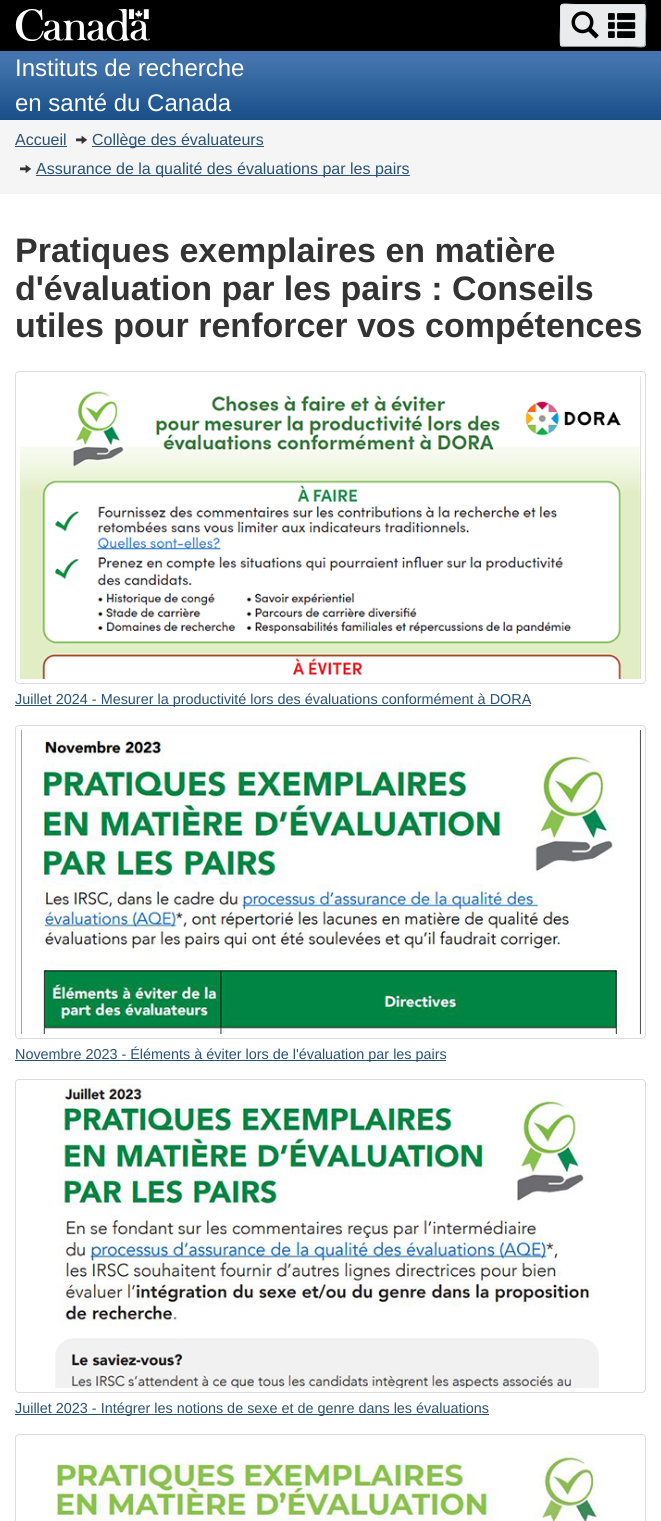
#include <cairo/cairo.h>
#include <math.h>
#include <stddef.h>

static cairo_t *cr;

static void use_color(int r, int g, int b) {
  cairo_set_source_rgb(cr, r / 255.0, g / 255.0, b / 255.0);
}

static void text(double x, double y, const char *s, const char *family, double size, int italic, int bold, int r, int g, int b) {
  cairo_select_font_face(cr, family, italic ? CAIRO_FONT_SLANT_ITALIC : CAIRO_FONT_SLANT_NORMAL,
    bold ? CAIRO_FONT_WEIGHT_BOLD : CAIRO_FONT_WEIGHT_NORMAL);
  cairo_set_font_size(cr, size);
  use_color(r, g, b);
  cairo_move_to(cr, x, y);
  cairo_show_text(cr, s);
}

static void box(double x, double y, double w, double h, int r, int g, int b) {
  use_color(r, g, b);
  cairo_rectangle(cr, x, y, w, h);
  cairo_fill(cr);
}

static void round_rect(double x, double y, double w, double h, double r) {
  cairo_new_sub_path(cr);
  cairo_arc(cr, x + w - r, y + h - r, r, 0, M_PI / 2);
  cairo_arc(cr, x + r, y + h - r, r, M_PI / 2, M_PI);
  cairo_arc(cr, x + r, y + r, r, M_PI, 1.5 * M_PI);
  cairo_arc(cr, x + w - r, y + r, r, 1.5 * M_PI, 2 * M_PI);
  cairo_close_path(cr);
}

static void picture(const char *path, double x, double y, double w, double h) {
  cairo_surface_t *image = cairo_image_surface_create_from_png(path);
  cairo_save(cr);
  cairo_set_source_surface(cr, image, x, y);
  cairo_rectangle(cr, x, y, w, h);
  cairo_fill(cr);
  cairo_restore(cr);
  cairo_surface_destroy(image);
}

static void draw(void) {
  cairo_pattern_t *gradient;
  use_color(255, 255, 255);
  cairo_paint(cr);
  gradient = cairo_pattern_create_linear(331, 0, 331, 120);
  cairo_pattern_add_color_stop_rgba(gradient, 0, 0.267, 0.455, 0.678, 1);
  cairo_pattern_add_color_stop_rgba(gradient, 0.5, 0.267, 0.455, 0.678, 1);
  cairo_pattern_add_color_stop_rgba(gradient, 1, 0.09, 0.31, 0.533, 1);
  cairo_set_source(cr, gradient);
  cairo_pattern_destroy(gradient);
  cairo_rectangle(cr, 0, 51, 661, 69);
  cairo_fill(cr);
  box(0, 0, 661, 51, 0, 0, 0);
  use_color(234, 235, 237);
  round_rect(560, 4, 86, 43, 3);
  cairo_fill(cr);
  cairo_new_path(cr);
  cairo_move_to(cr, 645, 5);
  cairo_curve_to(cr, 646.5, 7, 645.5, 22.5, 645.5, 25.5);
  cairo_line_to(cr, 645.5, 38);
  cairo_curve_to(cr, 645.5, 50, 645, 46.5, 629.5, 46.5);
  cairo_line_to(cr, 563, 46.5);
  cairo_line_to(cr, 561, 46);
  use_color(147, 148, 150);
  cairo_set_line_width(cr, 1);
  cairo_stroke(cr);
  cairo_new_path(cr);
  cairo_move_to(cr, 561, 46);
  cairo_curve_to(cr, 559.5, 44, 560.5, 28.5, 560.5, 25.5);
  cairo_line_to(cr, 560.5, 13);
  cairo_curve_to(cr, 560.5, 1, 561, 4.5, 576.5, 4.5);
  cairo_line_to(cr, 643, 4.5);
  cairo_line_to(cr, 645, 5);
  use_color(220, 222, 225);
  cairo_stroke(cr);
  picture("img_01.png", 571, 11, 28, 28);
  picture("img_02.png", 608, 13, 28, 25);
  picture("img_03.png", 15, 9, 135, 32);
  box(0, 120, 661, 74, 245, 245, 245);
  box(15, 146, 52, 1, 41, 83, 118);
  picture("img_04.png", 76, 135, 12, 9);
  box(92, 146, 172, 1, 41, 83, 118);
  picture("img_04.png", 20, 164, 12, 9);
  box(36, 175, 374, 1, 41, 83, 118);
  round_rect(15.5, 371.5, 630, 312, 3.5);
  use_color(221, 221, 221);
  cairo_stroke(cr);
  picture("img_05.png", 20, 376, 621, 303);
  box(15, 705, 516, 1, 41, 83, 118);
  round_rect(15.5, 725.5, 630, 313, 3.5);
  use_color(221, 221, 221);
  cairo_stroke(cr);
  picture("img_06.png", 21, 730, 620, 304);
  box(15, 1060, 431, 1, 41, 83, 118);
  round_rect(15.5, 1079.5, 630, 313, 3.5);
  use_color(221, 221, 221);
  cairo_stroke(cr);
  picture("img_07.png", 55, 1084, 544, 304);
  box(15, 1414, 474, 1, 41, 83, 118);
  round_rect(15.5, 1434.5, 630, 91, 3.5);
  use_color(221, 221, 221);
  cairo_stroke(cr);
  picture("img_08.png", 56, 1451, 542, 70);
  text(15, 76, "Instituts de recherche", "Liberation Sans", 24, 0, 0, 255, 255, 255);
  text(15, 111, "en santé du Canada", "Liberation Sans", 24, 0, 0, 255, 255, 255);
  text(15, 145, "Accueil", "Liberation Sans", 16, 0, 0, 41, 83, 118);
  text(92, 145, "Collège des évaluateurs", "Liberation Sans", 16, 0, 0, 41, 83, 118);
  text(36, 174, "Assurance de la qualité des évaluations par les pairs", "Liberation Sans", 16, 0, 0, 41, 83, 118);
  text(15, 262, "Pratiques exemplaires en matière", "Liberation Sans", 34, 0, 1, 51, 51, 51);
  text(15, 300, "d'évaluation par les pairs : Conseils", "Liberation Sans", 34, 0, 1, 51, 51, 51);
  text(15, 337, "utiles pour renforcer vos compétences", "Liberation Sans", 34, 0, 1, 51, 51, 51);
  text(15, 704, "Juillet 2024 - Mesurer la productivité lors des évaluations conformément à DORA", "Liberation Sans", 14.4, 0, 0, 41, 83, 118);
  text(15, 1059, "Novembre 2023 - Éléments à éviter lors de l'évaluation par les pairs", "Liberation Sans", 14.4, 0, 0, 41, 83, 118);
  text(15, 1413, "Juillet 2023 - Intégrer les notions de sexe et de genre dans les évaluations", "Liberation Sans", 14.4, 0, 0, 41, 83, 118);
}

int main(void) {
  cairo_surface_t *surface = cairo_image_surface_create(CAIRO_FORMAT_RGB24, 661, 1521);
  cr = cairo_create(surface);
  cairo_font_options_t *options = cairo_font_options_create();
  cairo_font_options_set_hint_metrics(options, CAIRO_HINT_METRICS_OFF);
  cairo_font_options_set_hint_style(options, CAIRO_HINT_STYLE_NONE);
  cairo_set_font_options(cr, options);
  cairo_set_miter_limit(cr, 4);
  draw();
  cairo_surface_write_to_png(surface, "out.png");
  cairo_font_options_destroy(options);
  cairo_destroy(cr);
  cairo_surface_destroy(surface);
  return 0;
}
